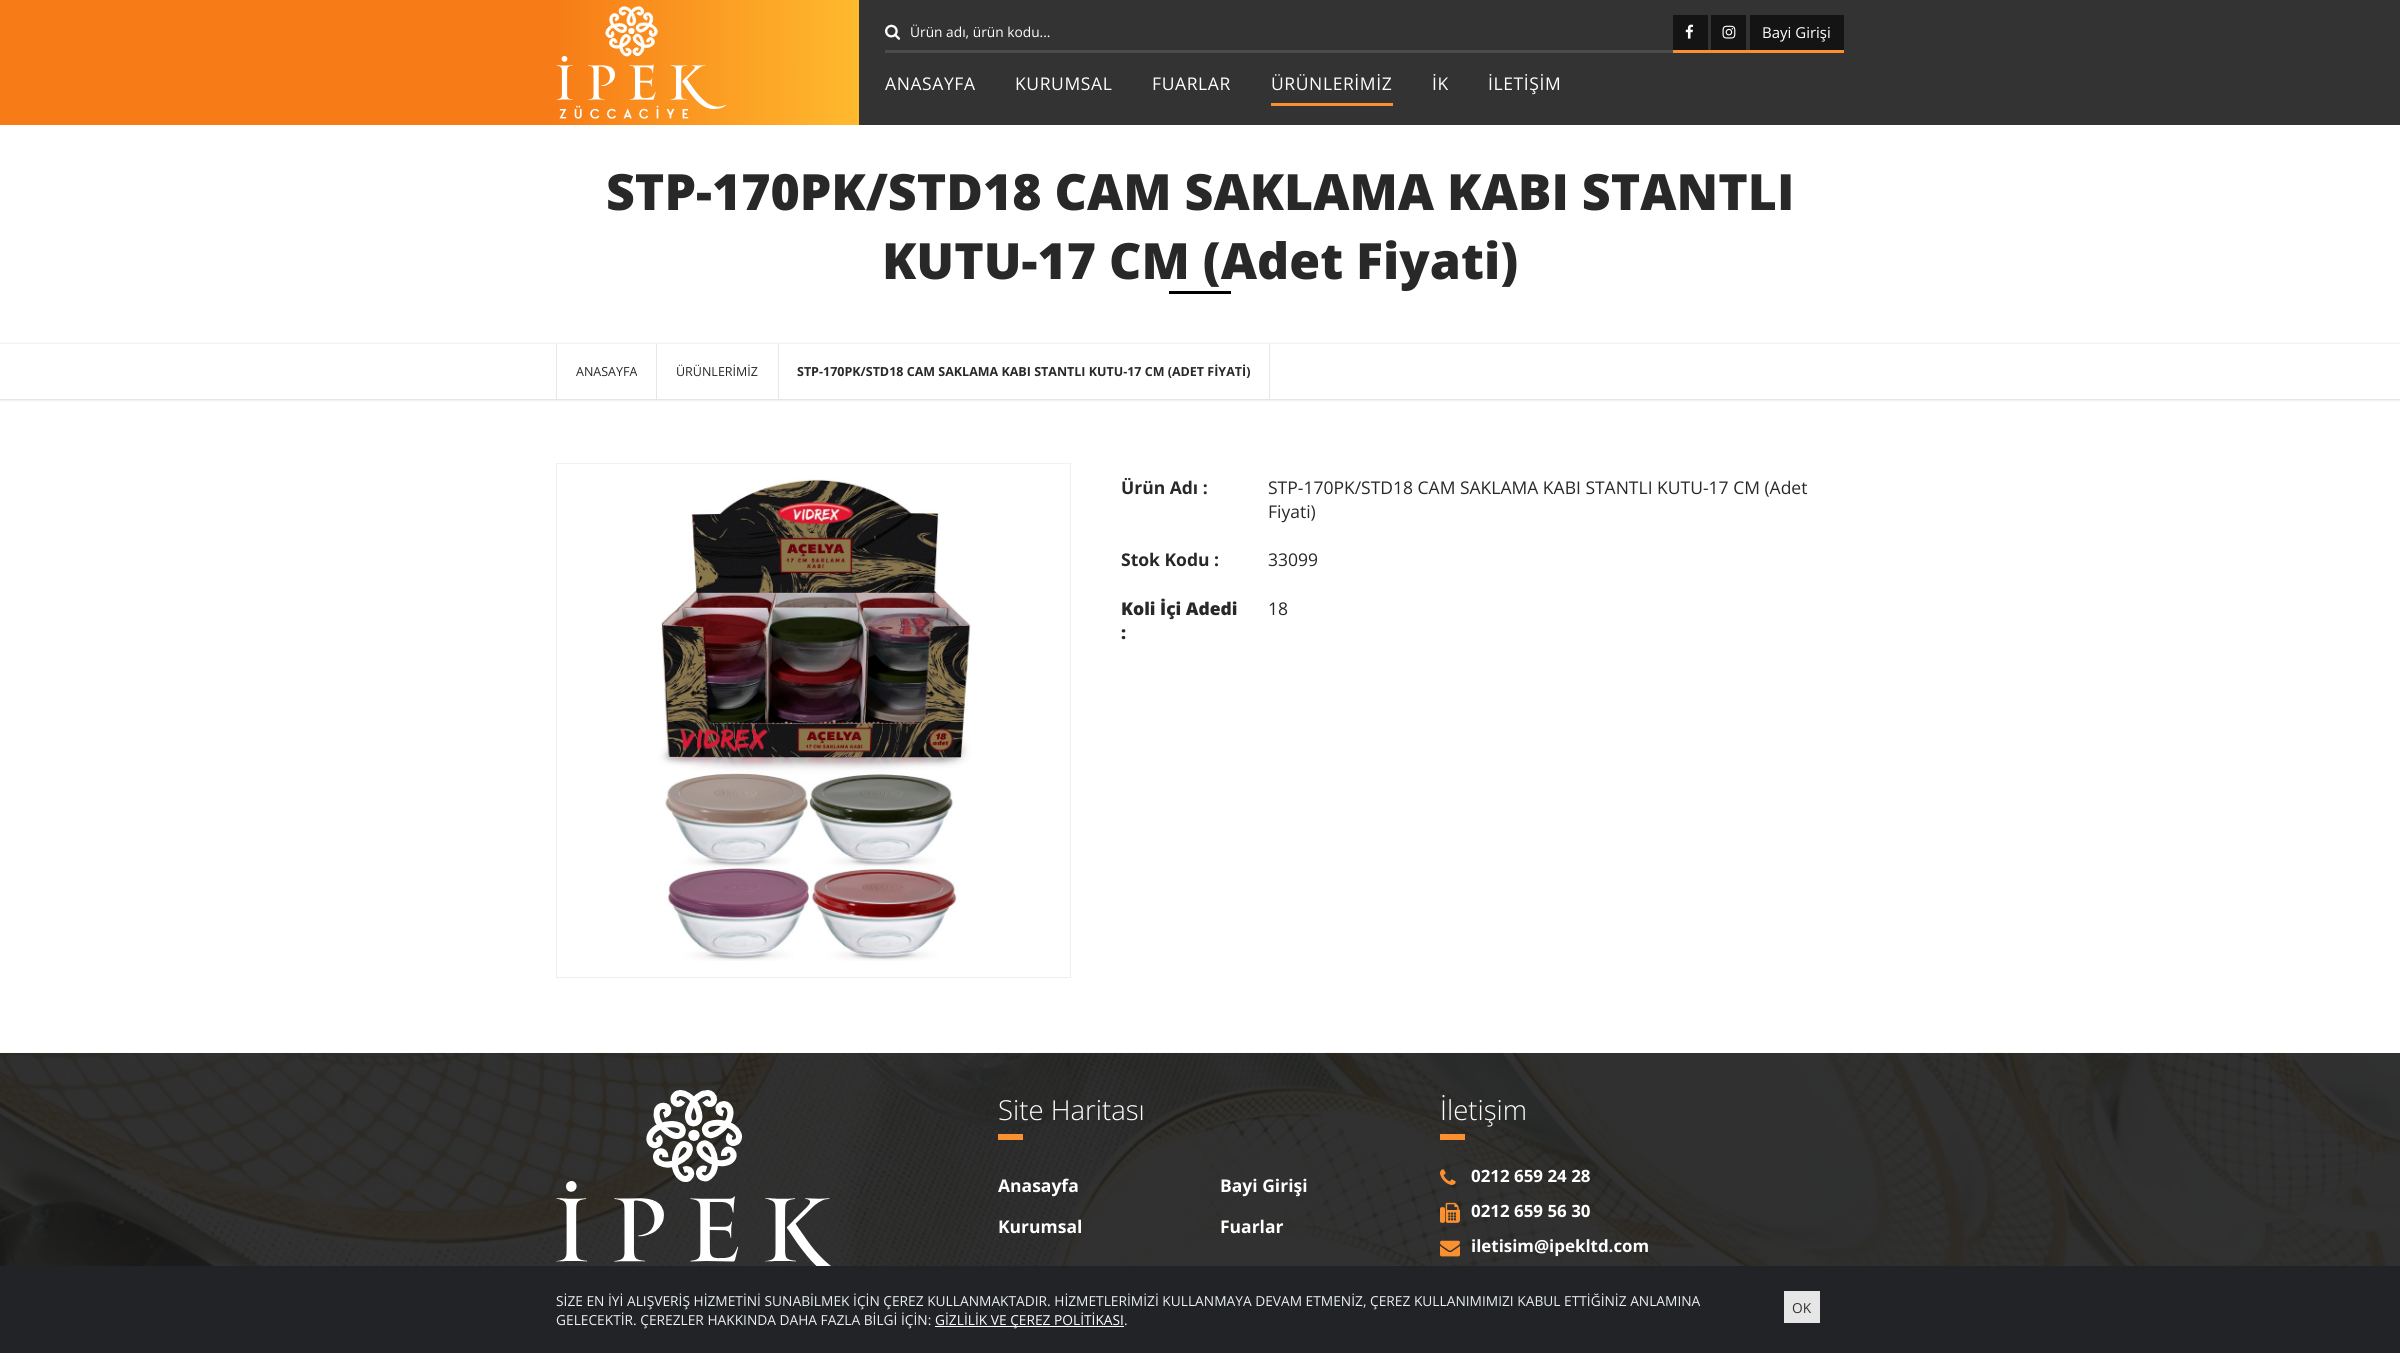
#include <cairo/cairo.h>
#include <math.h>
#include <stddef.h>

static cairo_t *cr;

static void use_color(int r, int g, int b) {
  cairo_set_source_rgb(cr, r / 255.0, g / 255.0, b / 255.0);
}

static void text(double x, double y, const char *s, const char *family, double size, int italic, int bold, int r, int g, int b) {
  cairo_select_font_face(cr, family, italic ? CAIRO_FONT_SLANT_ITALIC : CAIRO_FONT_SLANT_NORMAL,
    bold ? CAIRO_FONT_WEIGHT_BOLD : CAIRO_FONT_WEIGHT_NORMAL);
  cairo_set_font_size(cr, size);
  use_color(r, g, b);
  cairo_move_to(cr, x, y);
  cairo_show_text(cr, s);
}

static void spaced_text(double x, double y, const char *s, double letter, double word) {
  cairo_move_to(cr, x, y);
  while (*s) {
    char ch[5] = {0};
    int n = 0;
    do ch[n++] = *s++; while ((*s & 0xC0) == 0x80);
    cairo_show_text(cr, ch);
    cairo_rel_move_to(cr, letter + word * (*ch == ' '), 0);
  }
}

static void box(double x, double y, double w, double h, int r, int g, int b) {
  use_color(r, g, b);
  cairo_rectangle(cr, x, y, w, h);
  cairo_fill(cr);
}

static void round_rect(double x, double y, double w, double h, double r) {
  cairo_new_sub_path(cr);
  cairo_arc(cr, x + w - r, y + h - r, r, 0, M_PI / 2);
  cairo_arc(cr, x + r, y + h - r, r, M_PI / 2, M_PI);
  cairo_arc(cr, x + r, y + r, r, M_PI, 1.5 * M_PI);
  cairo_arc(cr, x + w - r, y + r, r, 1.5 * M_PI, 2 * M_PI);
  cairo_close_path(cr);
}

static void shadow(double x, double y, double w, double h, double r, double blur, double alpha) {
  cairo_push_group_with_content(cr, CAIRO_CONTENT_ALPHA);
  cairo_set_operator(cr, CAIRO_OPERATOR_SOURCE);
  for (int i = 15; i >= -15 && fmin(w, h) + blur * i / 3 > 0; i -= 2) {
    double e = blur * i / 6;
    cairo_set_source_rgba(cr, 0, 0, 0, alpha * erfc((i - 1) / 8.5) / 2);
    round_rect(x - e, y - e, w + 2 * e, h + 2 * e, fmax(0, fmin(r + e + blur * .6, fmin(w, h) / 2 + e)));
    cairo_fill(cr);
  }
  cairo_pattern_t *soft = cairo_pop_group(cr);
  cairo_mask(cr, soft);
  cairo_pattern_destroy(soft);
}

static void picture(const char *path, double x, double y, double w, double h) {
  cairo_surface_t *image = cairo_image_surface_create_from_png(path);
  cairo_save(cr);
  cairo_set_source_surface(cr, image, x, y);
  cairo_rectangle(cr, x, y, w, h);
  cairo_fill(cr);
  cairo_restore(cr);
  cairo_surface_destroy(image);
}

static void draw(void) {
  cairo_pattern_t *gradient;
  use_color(255, 255, 255);
  cairo_paint(cr);
  box(859, 0, 1541, 125, 51, 51, 51);
  box(0, 0, 556, 125, 247, 124, 23);
  gradient = cairo_pattern_create_linear(556, 63, 859, 62);
  cairo_pattern_add_color_stop_rgba(gradient, 0, 0.969, 0.486, 0.09, 1);
  cairo_pattern_add_color_stop_rgba(gradient, 1, 1, 0.729, 0.18, 1);
  cairo_set_source(cr, gradient);
  cairo_pattern_destroy(gradient);
  cairo_rectangle(cr, 556, 0, 303, 125);
  cairo_fill(cr);
  picture("img_01.png", 556, 6, 170, 113);
  box(885, 50, 788, 3, 75, 75, 75);
  picture("img_02.png", 885, 24, 16, 16);
  box(1673, 50, 171, 3, 250, 144, 48);
  box(1673, 15, 35, 35, 20, 20, 20);
  picture("img_03.png", 1685, 24, 9, 15);
  box(1711, 15, 35, 35, 20, 20, 20);
  picture("img_04.png", 1722, 25, 14, 14);
  box(1750, 15, 94, 35, 20, 20, 20);
  box(1271, 103, 122, 3, 250, 144, 48);
  box(1169, 291, 62, 3, 0, 0, 0);
  cairo_save(cr);
  cairo_set_fill_rule(cr, CAIRO_FILL_RULE_EVEN_ODD);
  cairo_new_path(cr);
  cairo_move_to(cr, 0, 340);
  cairo_line_to(cr, 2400, 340);
  cairo_line_to(cr, 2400, 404);
  cairo_line_to(cr, 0, 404);
  cairo_close_path(cr);
  cairo_move_to(cr, 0, 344);
  cairo_line_to(cr, 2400, 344);
  cairo_line_to(cr, 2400, 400);
  cairo_line_to(cr, 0, 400);
  cairo_close_path(cr);
  cairo_clip(cr);
  use_color(240, 240, 240);
  shadow(0, 343, 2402, 58, 0, 0.5, 1);
  cairo_restore(cr);
  box(0, 399, 2400, 1, 230, 230, 230);
  box(556, 344, 1, 55, 230, 230, 230);
  box(656, 344, 1, 55, 230, 230, 230);
  box(1269, 344, 1, 55, 230, 230, 230);
  box(778, 344, 1, 55, 230, 230, 230);
  cairo_rectangle(cr, 556.5, 463.5, 514, 514);
  use_color(238, 238, 238);
  cairo_set_line_width(cr, 1);
  cairo_stroke(cr);
  picture("img_05.png", 558, 463, 512, 498);
  box(0, 1053, 2400, 213, 26, 26, 26);
  picture("img_06.png", 0, 1052, 2400, 214);
  picture("img_07.png", 556, 1090, 275, 176);
  box(998, 1134, 25, 6, 250, 144, 48);
  box(1440, 1134, 25, 6, 250, 144, 48);
  picture("img_08.png", 1440, 1169, 16, 16);
  picture("img_09.png", 1440, 1202, 20, 21);
  picture("img_10.png", 1440, 1240, 20, 17);
  box(0, 1266, 2400, 87, 33, 35, 39);
  box(935, 1326, 189, 1, 255, 255, 255);
  box(1784, 1291, 36, 32, 230, 230, 230);
  text(910, 37, "Ürün adı, ürün kodu...", "Open Sans", 13.75, 0, 0, 255, 255, 255);
  text(1762, 38, "Bayi Girişi", "Open Sans", 15, 0, 0, 255, 255, 255);
  cairo_set_font_size(cr, 17.5);
  spaced_text(885, 90, "ANASAYFA", 0.6, 0);
  spaced_text(1015, 90, "KURUMSAL", 0.6, 0);
  spaced_text(1152, 90, "FUARLAR", 0.6, 0);
  spaced_text(1271, 90, "ÜRÜNLERİMİZ", 0.6, 0);
  spaced_text(1432, 90, "İK", 0.6, 0);
  spaced_text(1488, 90, "İLETİŞİM", 0.6, 0);
  text(606, 210, "STP-170PK/STD18 CAM SAKLAMA KABI STANTLI", "Open Sans ExtraBold", 50, 0, 0, 40, 40, 40);
  text(882, 279, "KUTU-17 CM (Adet Fiyati)", "Open Sans ExtraBold", 50, 0, 0, 40, 40, 40);
  text(576, 376, "ANASAYFA", "Open Sans", 12.5, 0, 0, 40, 40, 40);
  text(676, 376, "ÜRÜNLERİMİZ", "Open Sans", 12.5, 0, 0, 40, 40, 40);
  text(797, 376, "STP-170PK/STD18 CAM SAKLAMA KABI STANTLI KUTU-17 CM (ADET FİYATİ)", "Open Sans", 12.5, 0, 1, 40, 40, 40);
  text(1121, 494, "Ürün Adı :", "Open Sans", 17.5, 0, 1, 40, 40, 40);
  text(1268, 494, "STP-170PK/STD18 CAM SAKLAMA KABI STANTLI KUTU-17 CM (Adet", "Open Sans", 17.5, 0, 0, 40, 40, 40);
  text(1268, 518, "Fiyati)", "Open Sans", 17.5, 0, 0, 40, 40, 40);
  text(1121, 566, "Stok Kodu :", "Open Sans", 17.5, 0, 1, 40, 40, 40);
  text(1268, 566, "33099", "Open Sans", 17.5, 0, 0, 40, 40, 40);
  text(1121, 615, "Koli İçi Adedi", "Open Sans ExtraBold", 17.5, 0, 0, 40, 40, 40);
  text(1121, 639, ":", "Open Sans ExtraBold", 17.5, 0, 0, 40, 40, 40);
  text(1268, 615, "18", "Open Sans", 17.5, 0, 0, 40, 40, 40);
  text(998, 1120, "Site Haritası", "Open Sans Light", 27.5, 0, 0, 255, 255, 255);
  text(998, 1192, "Anasayfa", "Open Sans", 17.5, 0, 1, 255, 255, 255);
  text(1220, 1192, "Bayi Girişi", "Open Sans", 17.5, 0, 1, 255, 255, 255);
  text(998, 1233, "Kurumsal", "Open Sans", 17.5, 0, 1, 255, 255, 255);
  text(1220, 1233, "Fuarlar", "Open Sans", 17.5, 0, 1, 255, 255, 255);
  text(1440, 1120, "İletişim", "Open Sans Light", 27.5, 0, 0, 255, 255, 255);
  text(1471, 1182, "0212 659 24 28", "Open Sans", 16.9, 0, 1, 255, 255, 255);
  text(1471, 1217, "0212 659 56 30", "Open Sans", 16.9, 0, 1, 255, 255, 255);
  text(1471, 1252, "iletisim@ipekltd.com", "Open Sans", 16.9, 0, 1, 255, 255, 255);
  text(556, 1306, "SİZE EN İYİ ALIŞVERİŞ HİZMETİNİ SUNABİLMEK İÇİN ÇEREZ KULLANMAKTADIR. HİZMETLERİMİZİ KULLANMAYA DEVAM ETMENİZ, ÇEREZ KULLANIMIMIZI KABUL ETTİĞİNİZ ANLAMINA", "Open Sans", 13.75, 0, 0, 236, 240, 241);
  text(556, 1325, "GELECEKTİR. ÇEREZLER HAKKINDA DAHA FAZLA BİLGİ İÇİN:", "Open Sans", 13.75, 0, 0, 236, 240, 241);
  text(935, 1325, "GİZLİLİK VE ÇEREZ POLİTİKASI", "Open Sans", 13.75, 0, 0, 255, 255, 255);
  text(1124, 1325, ".", "Open Sans", 13.75, 0, 0, 236, 240, 241);
  text(1792, 1313, "OK", "Open Sans", 13.75, 0, 0, 51, 51, 51);
}

int main(void) {
  cairo_surface_t *surface = cairo_image_surface_create(CAIRO_FORMAT_RGB24, 2400, 1353);
  cr = cairo_create(surface);
  cairo_font_options_t *options = cairo_font_options_create();
  cairo_font_options_set_hint_metrics(options, CAIRO_HINT_METRICS_OFF);
  cairo_font_options_set_hint_style(options, CAIRO_HINT_STYLE_NONE);
  cairo_set_font_options(cr, options);
  cairo_set_miter_limit(cr, 4);
  draw();
  cairo_surface_write_to_png(surface, "out.png");
  cairo_font_options_destroy(options);
  cairo_destroy(cr);
  cairo_surface_destroy(surface);
  return 0;
}
